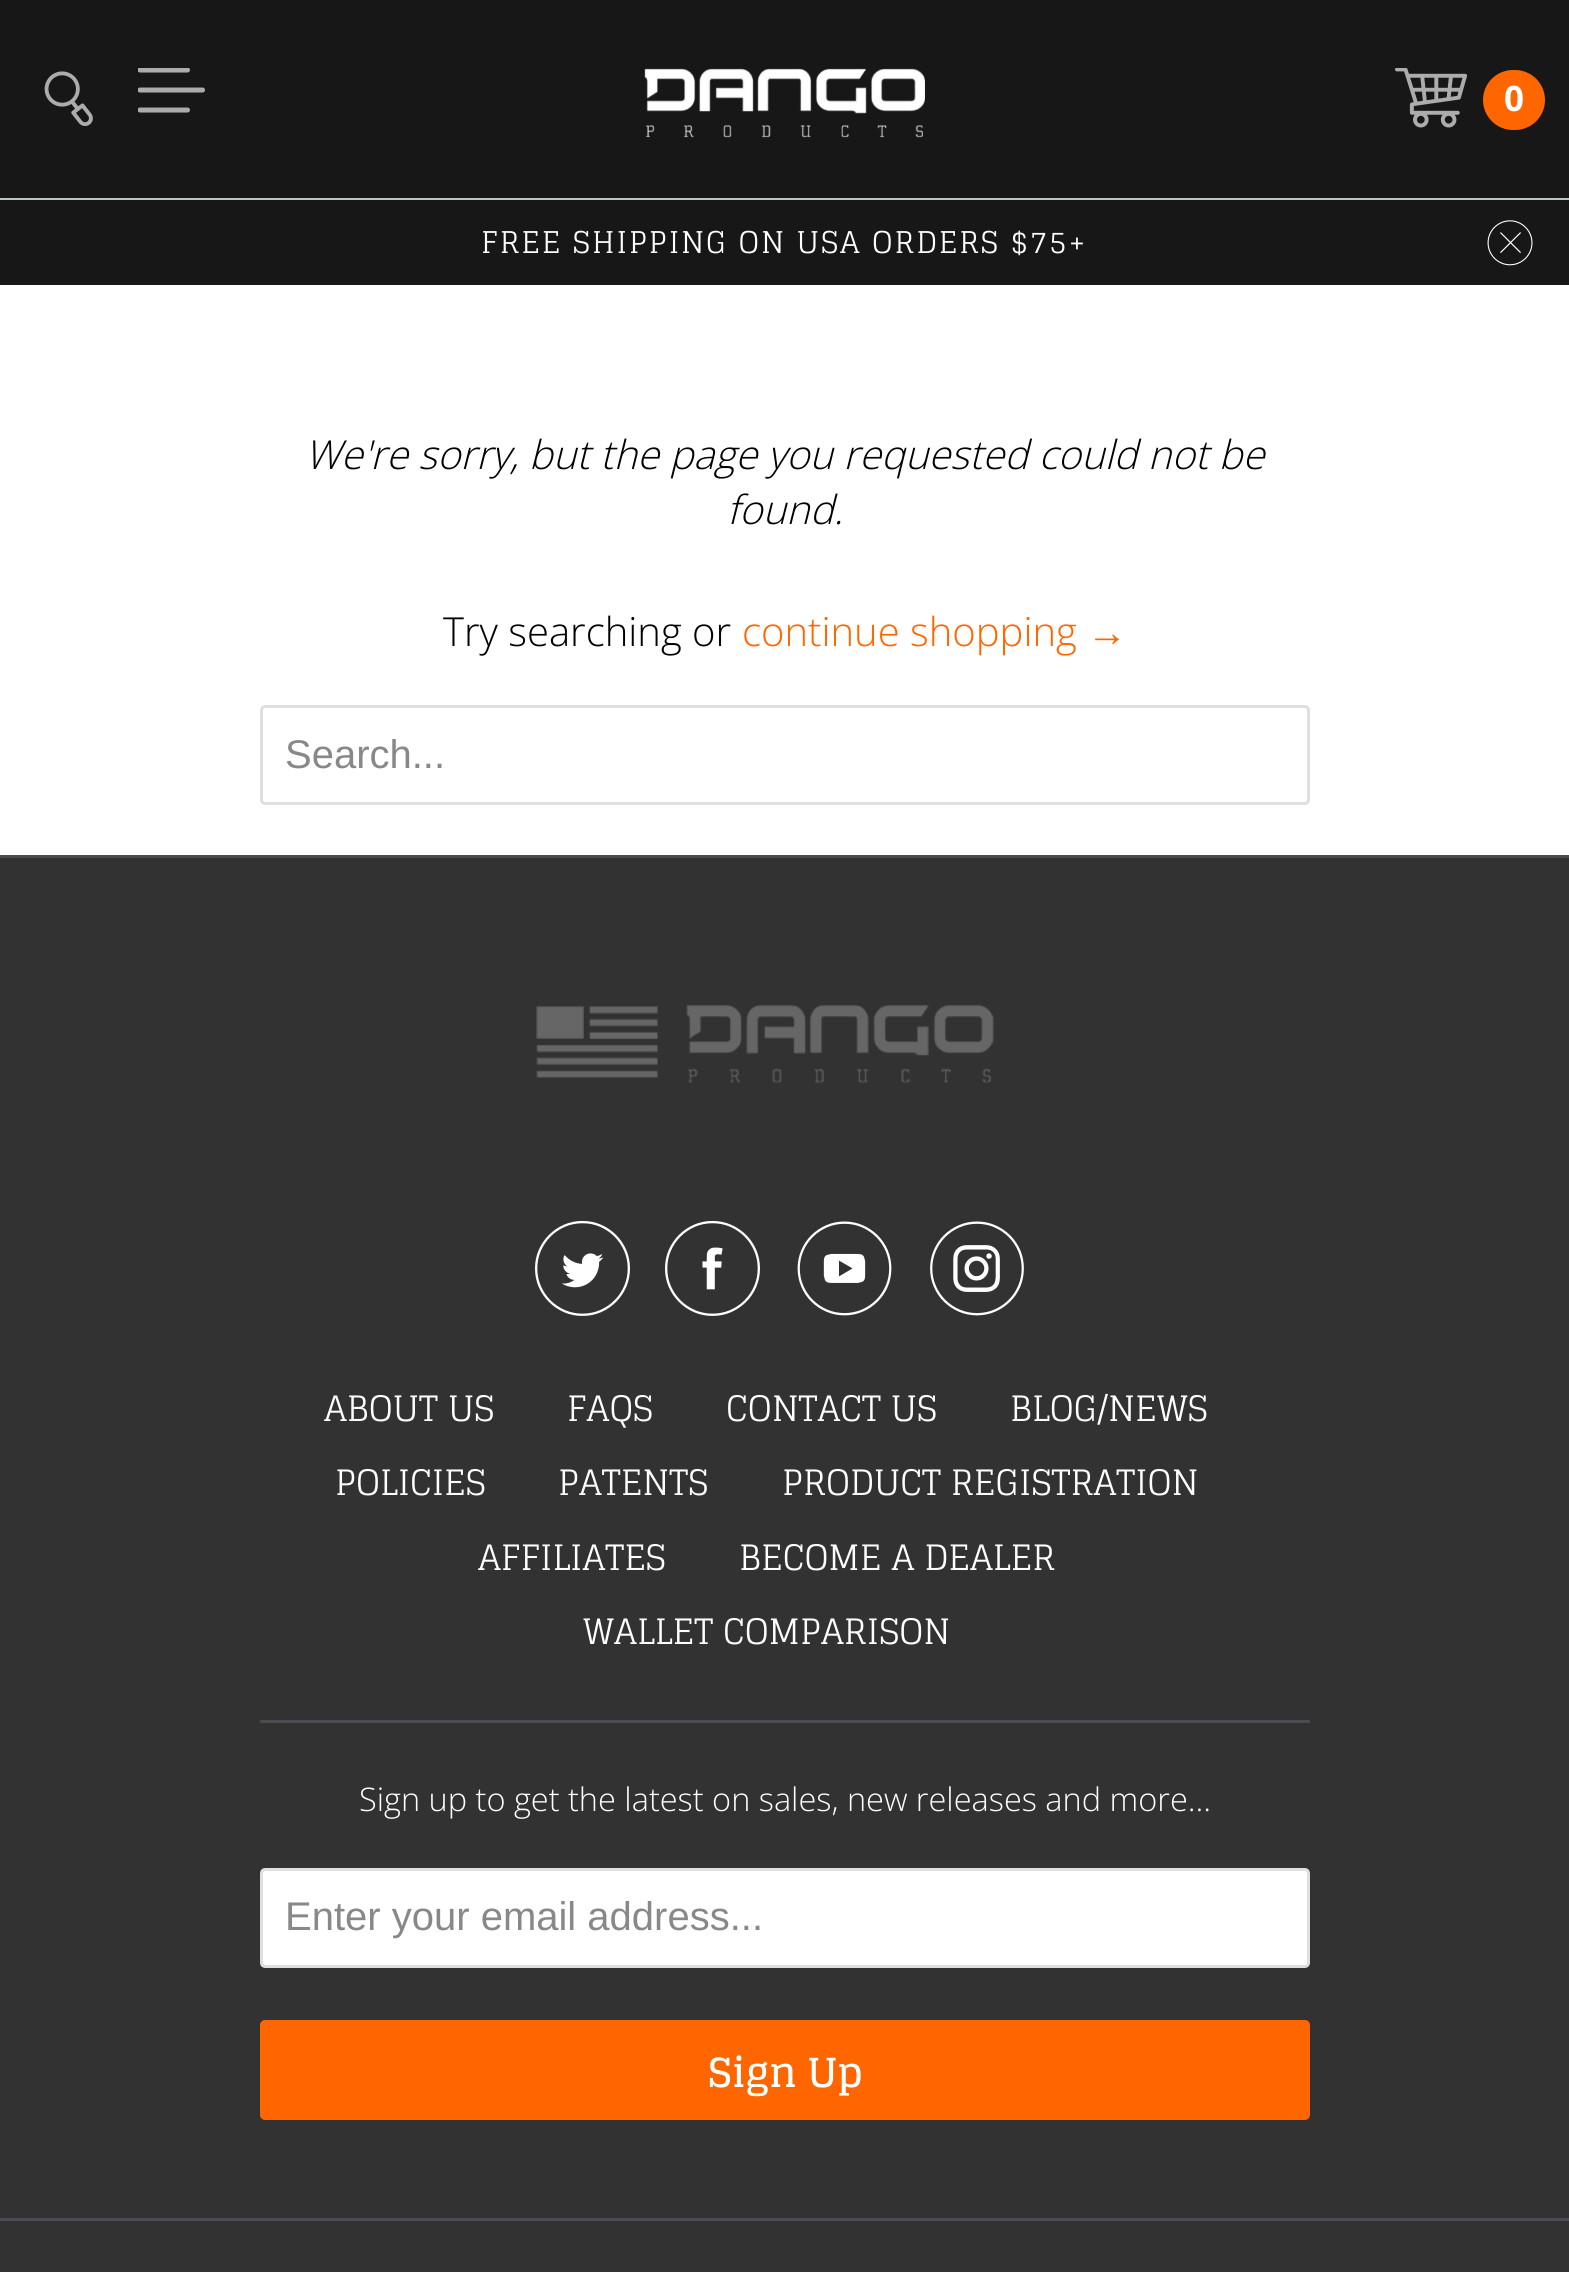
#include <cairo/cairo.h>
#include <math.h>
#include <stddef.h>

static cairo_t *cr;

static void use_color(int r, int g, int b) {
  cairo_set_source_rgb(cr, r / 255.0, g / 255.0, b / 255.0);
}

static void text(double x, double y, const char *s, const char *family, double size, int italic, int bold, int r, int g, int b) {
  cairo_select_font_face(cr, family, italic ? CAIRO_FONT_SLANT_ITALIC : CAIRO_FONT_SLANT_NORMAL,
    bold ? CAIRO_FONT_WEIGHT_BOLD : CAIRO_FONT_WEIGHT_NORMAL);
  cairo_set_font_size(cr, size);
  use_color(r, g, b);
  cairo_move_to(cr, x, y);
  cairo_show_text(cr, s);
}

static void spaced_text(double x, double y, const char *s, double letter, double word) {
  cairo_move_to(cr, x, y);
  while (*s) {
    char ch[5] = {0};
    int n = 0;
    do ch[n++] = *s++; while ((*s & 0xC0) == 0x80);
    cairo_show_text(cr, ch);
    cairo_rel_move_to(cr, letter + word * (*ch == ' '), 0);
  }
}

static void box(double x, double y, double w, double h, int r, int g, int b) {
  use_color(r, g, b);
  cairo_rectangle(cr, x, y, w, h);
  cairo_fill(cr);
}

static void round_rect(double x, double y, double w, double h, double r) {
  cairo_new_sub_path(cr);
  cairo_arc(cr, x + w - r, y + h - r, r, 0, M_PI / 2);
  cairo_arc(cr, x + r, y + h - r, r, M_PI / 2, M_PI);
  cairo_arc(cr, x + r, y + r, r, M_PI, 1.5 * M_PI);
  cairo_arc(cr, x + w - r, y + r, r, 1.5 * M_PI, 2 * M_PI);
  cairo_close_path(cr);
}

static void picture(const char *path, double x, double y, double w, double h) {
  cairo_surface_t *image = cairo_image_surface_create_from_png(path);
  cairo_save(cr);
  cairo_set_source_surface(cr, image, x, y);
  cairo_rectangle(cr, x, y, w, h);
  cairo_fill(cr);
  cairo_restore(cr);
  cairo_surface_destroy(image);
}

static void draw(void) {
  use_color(255, 255, 255);
  cairo_paint(cr);
  box(0, 0, 1569, 198, 23, 23, 23);
  box(0, 198, 1569, 2, 184, 198, 198);
  picture("img_01.png", 44, 71, 49, 55);
  cairo_save(cr);
  cairo_rectangle(cr, 138, 68, 67, 45);
  cairo_clip(cr);
  cairo_new_path(cr);
  cairo_move_to(cr, 140, 70);
  cairo_line_to(cr, 187.5, 70);
  cairo_move_to(cr, 140, 110);
  cairo_line_to(cr, 187.5, 110);
  use_color(172, 172, 172);
  cairo_set_line_width(cr, 5);
  cairo_set_line_cap(cr, CAIRO_LINE_CAP_ROUND);
  cairo_stroke(cr);
  cairo_new_path(cr);
  cairo_move_to(cr, 140, 90);
  cairo_line_to(cr, 202.5, 90);
  cairo_stroke(cr);
  cairo_restore(cr);
  picture("img_02.png", 644, 68, 281, 70);
  picture("img_03.png", 1395, 68, 73, 60);
  use_color(255, 102, 0);
  round_rect(1483, 70, 62, 60, 30);
  cairo_fill(cr);
  box(0, 200, 1569, 85, 23, 23, 23);
  picture("img_04.png", 1487, 220, 46, 46);
  round_rect(261.5, 706.5, 1047, 97, 3.5);
  use_color(223, 223, 223);
  cairo_set_line_width(cr, 3);
  cairo_stroke(cr);
  box(0, 858, 1569, 1414, 50, 50, 50);
  box(0, 855, 1569, 3, 73, 76, 80);
  picture("img_05.png", 536, 1005, 458, 78);
  picture("img_06.png", 535, 1220, 95, 96);
  picture("img_07.png", 665, 1220, 95, 96);
  picture("img_08.png", 797, 1221, 95, 95);
  picture("img_09.png", 930, 1221, 94, 95);
  box(260, 1720, 1050, 3, 73, 76, 80);
  use_color(255, 255, 255);
  round_rect(261.5, 1869.5, 1047, 97, 3.5);
  cairo_fill_preserve(cr);
  use_color(223, 223, 223);
  cairo_stroke(cr);
  use_color(255, 102, 0);
  round_rect(264, 2024, 1042, 92, 1);
  cairo_fill_preserve(cr);
  cairo_set_line_width(cr, 8);
  cairo_stroke(cr);
  box(0, 2218, 1569, 3, 73, 76, 80);
  text(1504, 111, "0", "Open Sans", 35, 0, 1, 255, 255, 255);
  cairo_select_font_face(cr, "Glegoo", CAIRO_FONT_SLANT_NORMAL, CAIRO_FONT_WEIGHT_NORMAL);
  cairo_set_font_size(cr, 30);
  spaced_text(481, 253, "FREE SHIPPING ON USA ORDERS $75+", 1.9, 0);
  text(305, 469, "We're sorry, but the page you requested could not be", "Open Sans Light", 40, 1, 0, 0, 0, 0);
  text(727, 524, "found.", "Open Sans Light", 40, 1, 0, 0, 0, 0);
  text(443, 646, "Try searching or", "Open Sans Light", 40, 0, 0, 0, 0, 0);
  text(742, 646, "continue shopping", "Open Sans Light", 40, 0, 0, 255, 102, 0);
  text(1087, 646, "→", "Liberation Serif", 40, 0, 0, 255, 102, 0);
  text(285, 768, "Search...", "Liberation Sans", 40, 0, 0, 136, 136, 136);
  text(324, 1421, "ABOUT US", "Glegoo", 35, 0, 0, 255, 255, 255);
  text(567, 1421, "FAQS", "Glegoo", 35, 0, 0, 255, 255, 255);
  text(726, 1421, "CONTACT US", "Glegoo", 35, 0, 0, 255, 255, 255);
  text(1010, 1421, "BLOG/NEWS", "Glegoo", 35, 0, 0, 255, 255, 255);
  text(335, 1495, "POLICIES", "Glegoo", 35, 0, 0, 255, 255, 255);
  text(558, 1495, "PATENTS", "Glegoo", 35, 0, 0, 255, 255, 255);
  text(782, 1495, "PRODUCT REGISTRATION", "Glegoo", 35, 0, 0, 255, 255, 255);
  text(478, 1570, "AFFILIATES", "Glegoo", 35, 0, 0, 255, 255, 255);
  text(739, 1570, "BECOME A DEALER", "Glegoo", 35, 0, 0, 255, 255, 255);
  text(583, 1644, "WALLET COMPARISON", "Glegoo", 35, 0, 0, 255, 255, 255);
  text(359, 1811, "Sign up to get the latest on sales, new releases and more…", "Open Sans Light", 32.5, 0, 0, 255, 255, 255);
  text(285, 1930, "Enter your email address...", "Liberation Sans", 40, 0, 0, 136, 136, 136);
  text(708, 2087, "Sign Up", "Glegoo", 40, 0, 1, 255, 255, 255);
}

int main(void) {
  cairo_surface_t *surface = cairo_image_surface_create(CAIRO_FORMAT_RGB24, 1569, 2272);
  cr = cairo_create(surface);
  cairo_font_options_t *options = cairo_font_options_create();
  cairo_font_options_set_hint_metrics(options, CAIRO_HINT_METRICS_OFF);
  cairo_font_options_set_hint_style(options, CAIRO_HINT_STYLE_NONE);
  cairo_set_font_options(cr, options);
  cairo_set_miter_limit(cr, 4);
  draw();
  cairo_surface_write_to_png(surface, "out.png");
  cairo_font_options_destroy(options);
  cairo_destroy(cr);
  cairo_surface_destroy(surface);
  return 0;
}
